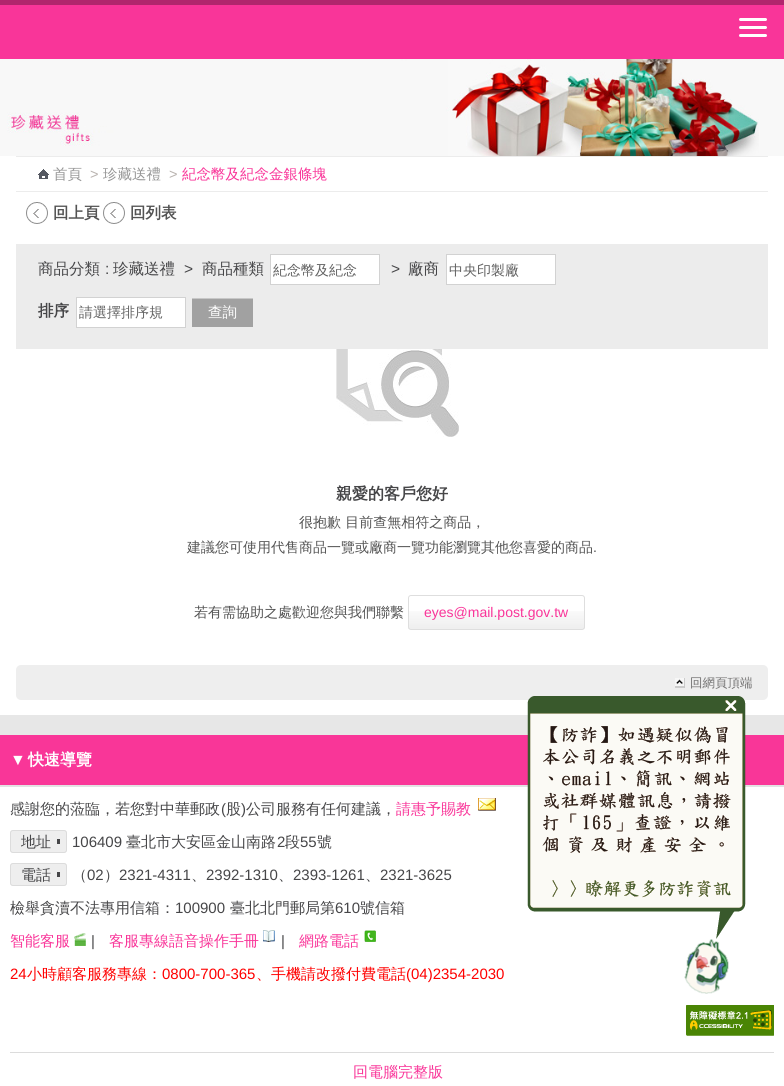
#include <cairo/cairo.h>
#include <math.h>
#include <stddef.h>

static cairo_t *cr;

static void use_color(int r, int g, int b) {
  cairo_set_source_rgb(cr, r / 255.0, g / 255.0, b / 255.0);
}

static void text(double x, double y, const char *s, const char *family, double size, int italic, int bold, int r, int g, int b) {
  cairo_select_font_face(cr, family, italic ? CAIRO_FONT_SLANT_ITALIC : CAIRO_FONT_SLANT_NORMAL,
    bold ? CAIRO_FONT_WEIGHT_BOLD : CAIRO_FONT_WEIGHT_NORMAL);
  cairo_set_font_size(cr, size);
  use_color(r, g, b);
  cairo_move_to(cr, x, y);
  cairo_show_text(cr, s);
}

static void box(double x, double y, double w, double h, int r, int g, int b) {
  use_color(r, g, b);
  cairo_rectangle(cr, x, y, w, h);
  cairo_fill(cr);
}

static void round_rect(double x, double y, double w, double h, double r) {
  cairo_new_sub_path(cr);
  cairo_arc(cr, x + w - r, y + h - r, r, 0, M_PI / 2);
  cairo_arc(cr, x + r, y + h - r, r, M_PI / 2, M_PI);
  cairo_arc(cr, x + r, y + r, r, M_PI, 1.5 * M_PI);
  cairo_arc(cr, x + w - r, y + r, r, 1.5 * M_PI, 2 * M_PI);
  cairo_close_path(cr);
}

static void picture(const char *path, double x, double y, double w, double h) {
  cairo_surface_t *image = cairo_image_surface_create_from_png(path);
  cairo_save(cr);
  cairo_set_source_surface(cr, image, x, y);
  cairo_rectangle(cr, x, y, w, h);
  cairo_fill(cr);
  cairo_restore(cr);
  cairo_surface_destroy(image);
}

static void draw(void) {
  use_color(255, 255, 255);
  cairo_paint(cr);
  picture("img_01.png", 0, 0, 784, 59);
  use_color(255, 255, 255);
  round_rect(739, 18, 28, 3, 1.5);
  cairo_fill(cr);
  round_rect(739, 26, 28, 3, 1.5);
  cairo_fill(cr);
  round_rect(739, 34, 28, 3, 1.5);
  cairo_fill(cr);
  box(0, 59, 784, 97, 248, 248, 248);
  picture("img_02.png", 7, 59, 752, 97);
  box(16, 156, 752, 1, 236, 236, 236);
  box(16, 191, 752, 1, 236, 236, 236);
  picture("img_03.png", 38, 169, 11, 10);
  picture("img_04.png", 26, 202, 22, 22);
  picture("img_04.png", 103, 202, 22, 22);
  box(16, 244, 752, 105, 236, 236, 236);
  use_color(255, 255, 255);
  cairo_rectangle(cr, 270.5, 254.5, 109, 30);
  cairo_fill_preserve(cr);
  use_color(210, 210, 210);
  cairo_set_line_width(cr, 1);
  cairo_stroke(cr);
  use_color(255, 255, 255);
  cairo_rectangle(cr, 446.5, 254.5, 109, 30);
  cairo_fill_preserve(cr);
  use_color(210, 210, 210);
  cairo_stroke(cr);
  use_color(255, 255, 255);
  cairo_rectangle(cr, 76.5, 297.5, 109, 30);
  cairo_fill_preserve(cr);
  use_color(210, 210, 210);
  cairo_stroke(cr);
  box(192, 299, 61, 28, 161, 161, 161);
  box(192, 298, 61, 1, 199, 199, 199);
  picture("img_05.png", 336, 349, 123, 88);
  picture("img_06.png", 408, 611, 177, 18);
  round_rect(408.5, 595.5, 176, 34, 2.5);
  use_color(222, 222, 222);
  cairo_stroke(cr);
  use_color(238, 238, 238);
  round_rect(16, 665, 752, 35, 5);
  cairo_fill(cr);
  picture("img_07.png", 675, 678, 10, 10);
  box(0, 715, 784, 20, 231, 231, 231);
  box(0, 735, 784, 50, 249, 54, 152);
  box(0, 785, 784, 2, 226, 226, 226);
  box(10, 1052, 764, 1, 220, 220, 220);
  picture("img_08.png", 478, 798, 18, 13);
  use_color(238, 238, 238);
  round_rect(10, 830, 57, 23, 3);
  cairo_fill(cr);
  box(57, 839, 3, 5, 70, 70, 72);
  round_rect(10.5, 830.5, 56, 22, 2.5);
  use_color(220, 220, 220);
  cairo_stroke(cr);
  use_color(238, 238, 238);
  round_rect(10, 863, 57, 23, 3);
  cairo_fill(cr);
  box(57, 872, 3, 5, 70, 70, 72);
  round_rect(10.5, 863.5, 56, 22, 2.5);
  use_color(220, 220, 220);
  cairo_stroke(cr);
  picture("img_09.png", 74, 933, 12, 13);
  picture("img_10.png", 263, 930, 12, 12);
  picture("img_11.png", 364, 930, 12, 12);
  picture("img_12.png", 686, 1005, 88, 31);
  picture("img_13.png", 527, 696, 219, 18);
  picture("img_14.png", 527, 714, 219, 156);
  picture("img_15.png", 527, 870, 219, 41);
  picture("img_16.png", 532, 911, 208, 28);
  picture("img_17.png", 684, 939, 45, 55);
  text(53, 179, "首頁", "WenQuanYi Zen Hei Medium", 14.5, 0, 0, 149, 149, 149);
  text(90, 179, ">", "Liberation Sans", 14.5, 0, 0, 184, 178, 174);
  text(103, 179, "珍藏送禮", "WenQuanYi Zen Hei Medium", 14.5, 0, 0, 149, 149, 149);
  text(169, 179, ">", "Liberation Sans", 14.5, 0, 0, 184, 178, 174);
  text(182, 179, "紀念幣及紀念金銀條塊", "WenQuanYi Zen Hei Medium", 14.5, 0, 0, 249, 53, 153);
  text(53, 218, "回上頁", "WenQuanYi Zen Hei", 15.5, 0, 1, 83, 83, 83);
  text(130, 218, "回列表", "WenQuanYi Zen Hei", 15.5, 0, 1, 83, 83, 83);
  text(38, 274, "商品分類", "WenQuanYi Zen Hei Medium", 15.5, 0, 0, 70, 70, 72);
  text(105, 274, ":", "Liberation Sans", 15.5, 0, 0, 70, 70, 72);
  text(113, 274, "珍藏送禮", "WenQuanYi Zen Hei Medium", 15.5, 0, 0, 70, 70, 72);
  text(184, 274, ">", "Liberation Sans", 15.5, 0, 0, 70, 70, 72);
  text(202, 274, "商品種類", "WenQuanYi Zen Hei Medium", 15.5, 0, 0, 70, 70, 72);
  text(273, 275, "紀念幣及紀念", "WenQuanYi Zen Hei Medium", 14, 0, 0, 98, 98, 98);
  text(391, 274, ">", "Liberation Sans", 15.5, 0, 0, 70, 70, 72);
  text(408, 274, "廠商", "WenQuanYi Zen Hei Medium", 15.5, 0, 0, 70, 70, 72);
  text(449, 275, "中央印製廠", "WenQuanYi Zen Hei Medium", 14, 0, 0, 98, 98, 98);
  text(38, 316, "排序", "WenQuanYi Zen Hei", 15.5, 0, 1, 70, 70, 72);
  text(79, 317, "請選擇排序規", "WenQuanYi Zen Hei Medium", 14, 0, 0, 98, 98, 98);
  text(208, 317, "查詢", "WenQuanYi Zen Hei Medium", 14.5, 0, 0, 255, 255, 255);
  text(336, 499, "親愛的客戶您好", "WenQuanYi Zen Hei", 16, 0, 1, 70, 70, 72);
  text(299, 527, "很抱歉 目前查無相符之商品，", "WenQuanYi Zen Hei Medium", 14, 0, 0, 83, 83, 83);
  text(187, 552, "建議您可使用代售商品一覽或廠商一覽功能瀏覽其他您喜愛的商品", "WenQuanYi Zen Hei Medium", 14, 0, 0, 83, 83, 83);
  text(593, 552, ".", "Liberation Sans", 14, 0, 0, 83, 83, 83);
  text(194, 617, "若有需協助之處歡迎您與我們聯繫", "WenQuanYi Zen Hei Medium", 14, 0, 0, 83, 83, 83);
  text(424, 617, "eyes@mail.post.gov.tw", "Liberation Sans", 14, 0, 0, 249, 53, 153);
  text(690, 687, "回網頁頂端", "WenQuanYi Zen Hei Medium", 12.5, 0, 0, 114, 113, 113);
  text(10, 765, "▼", "Liberation Sans", 16, 0, 0, 255, 255, 255);
  text(28, 765, "快速導覽", "WenQuanYi Zen Hei", 16, 0, 1, 255, 255, 255);
  text(10, 814, "感謝您的蒞臨，若您對中華郵政", "WenQuanYi Zen Hei Medium", 15, 0, 0, 70, 70, 72);
  text(221, 814, "(", "Liberation Sans", 15, 0, 0, 70, 70, 72);
  text(226, 814, "股", "WenQuanYi Zen Hei Medium", 15, 0, 0, 70, 70, 72);
  text(241, 814, ")", "Liberation Sans", 15, 0, 0, 70, 70, 72);
  text(246, 814, "公司服務有任何建議，", "WenQuanYi Zen Hei Medium", 15, 0, 0, 70, 70, 72);
  text(396, 814, "請惠予賜教", "WenQuanYi Zen Hei Medium", 15, 0, 0, 249, 53, 153);
  text(21, 847, "地址", "WenQuanYi Zen Hei Medium", 15, 0, 0, 70, 70, 72);
  text(72, 847, "106409", "Liberation Sans", 15, 0, 0, 70, 70, 72);
  text(126, 847, "臺北市大安區金山南路", "WenQuanYi Zen Hei Medium", 15, 0, 0, 70, 70, 72);
  text(277, 847, "2", "Liberation Sans", 15, 0, 0, 70, 70, 72);
  text(285, 847, "段", "WenQuanYi Zen Hei Medium", 15, 0, 0, 70, 70, 72);
  text(300, 847, "55", "Liberation Sans", 15, 0, 0, 70, 70, 72);
  text(317, 847, "號", "WenQuanYi Zen Hei Medium", 15, 0, 0, 70, 70, 72);
  text(21, 880, "電話", "WenQuanYi Zen Hei Medium", 15, 0, 0, 70, 70, 72);
  text(72, 880, "（", "WenQuanYi Zen Hei Medium", 15, 0, 0, 70, 70, 72);
  text(87, 880, "02", "Liberation Sans", 15, 0, 0, 70, 70, 72);
  text(104, 880, "）", "WenQuanYi Zen Hei Medium", 15, 0, 0, 70, 70, 72);
  text(119, 880, "2321-4311", "Liberation Sans", 15, 0, 0, 70, 70, 72);
  text(191, 880, "、", "WenQuanYi Zen Hei Medium", 15, 0, 0, 70, 70, 72);
  text(206, 880, "2392-1310", "Liberation Sans", 15, 0, 0, 70, 70, 72);
  text(278, 880, "、", "WenQuanYi Zen Hei Medium", 15, 0, 0, 70, 70, 72);
  text(293, 880, "2393-1261", "Liberation Sans", 15, 0, 0, 70, 70, 72);
  text(365, 880, "、", "WenQuanYi Zen Hei Medium", 15, 0, 0, 70, 70, 72);
  text(380, 880, "2321-3625", "Liberation Sans", 15, 0, 0, 70, 70, 72);
  text(10, 913, "檢舉貪瀆不法專用信箱：", "WenQuanYi Zen Hei Medium", 15, 0, 0, 70, 70, 72);
  text(175, 913, "100900", "Liberation Sans", 15, 0, 0, 70, 70, 72);
  text(230, 913, "臺北北門郵局第", "WenQuanYi Zen Hei Medium", 15, 0, 0, 70, 70, 72);
  text(335, 913, "610", "Liberation Sans", 15, 0, 0, 70, 70, 72);
  text(360, 913, "號信箱", "WenQuanYi Zen Hei Medium", 15, 0, 0, 70, 70, 72);
  text(10, 946, "智能客服", "WenQuanYi Zen Hei Medium", 15, 0, 0, 249, 53, 153);
  text(91, 946, "|", "Liberation Sans", 15, 0, 0, 70, 70, 72);
  text(109, 946, "客服專線語音操作手冊", "WenQuanYi Zen Hei Medium", 15, 0, 0, 249, 53, 153);
  text(281, 946, "|", "Liberation Sans", 15, 0, 0, 70, 70, 72);
  text(299, 946, "網路電話", "WenQuanYi Zen Hei Medium", 15, 0, 0, 249, 53, 153);
  text(10, 979, "24", "Liberation Sans", 15, 0, 0, 255, 0, 0);
  text(27, 979, "小時顧客服務專線：", "WenQuanYi Zen Hei Medium", 15, 0, 0, 255, 0, 0);
  text(162, 979, "0800-700-365", "Liberation Sans", 15, 0, 0, 255, 0, 0);
  text(256, 979, "、手機請改撥付費電話", "WenQuanYi Zen Hei Medium", 15, 0, 0, 255, 0, 0);
  text(406, 979, "(04)2354-2030", "Liberation Sans", 15, 0, 0, 255, 0, 0);
  text(353, 1077, "回電腦完整版", "WenQuanYi Zen Hei Medium", 15, 0, 0, 249, 53, 153);
}

int main(void) {
  cairo_surface_t *surface = cairo_image_surface_create(CAIRO_FORMAT_RGB24, 784, 1086);
  cr = cairo_create(surface);
  cairo_font_options_t *options = cairo_font_options_create();
  cairo_font_options_set_hint_metrics(options, CAIRO_HINT_METRICS_OFF);
  cairo_font_options_set_hint_style(options, CAIRO_HINT_STYLE_NONE);
  cairo_set_font_options(cr, options);
  cairo_set_miter_limit(cr, 4);
  draw();
  cairo_surface_write_to_png(surface, "out.png");
  cairo_font_options_destroy(options);
  cairo_destroy(cr);
  cairo_surface_destroy(surface);
  return 0;
}
